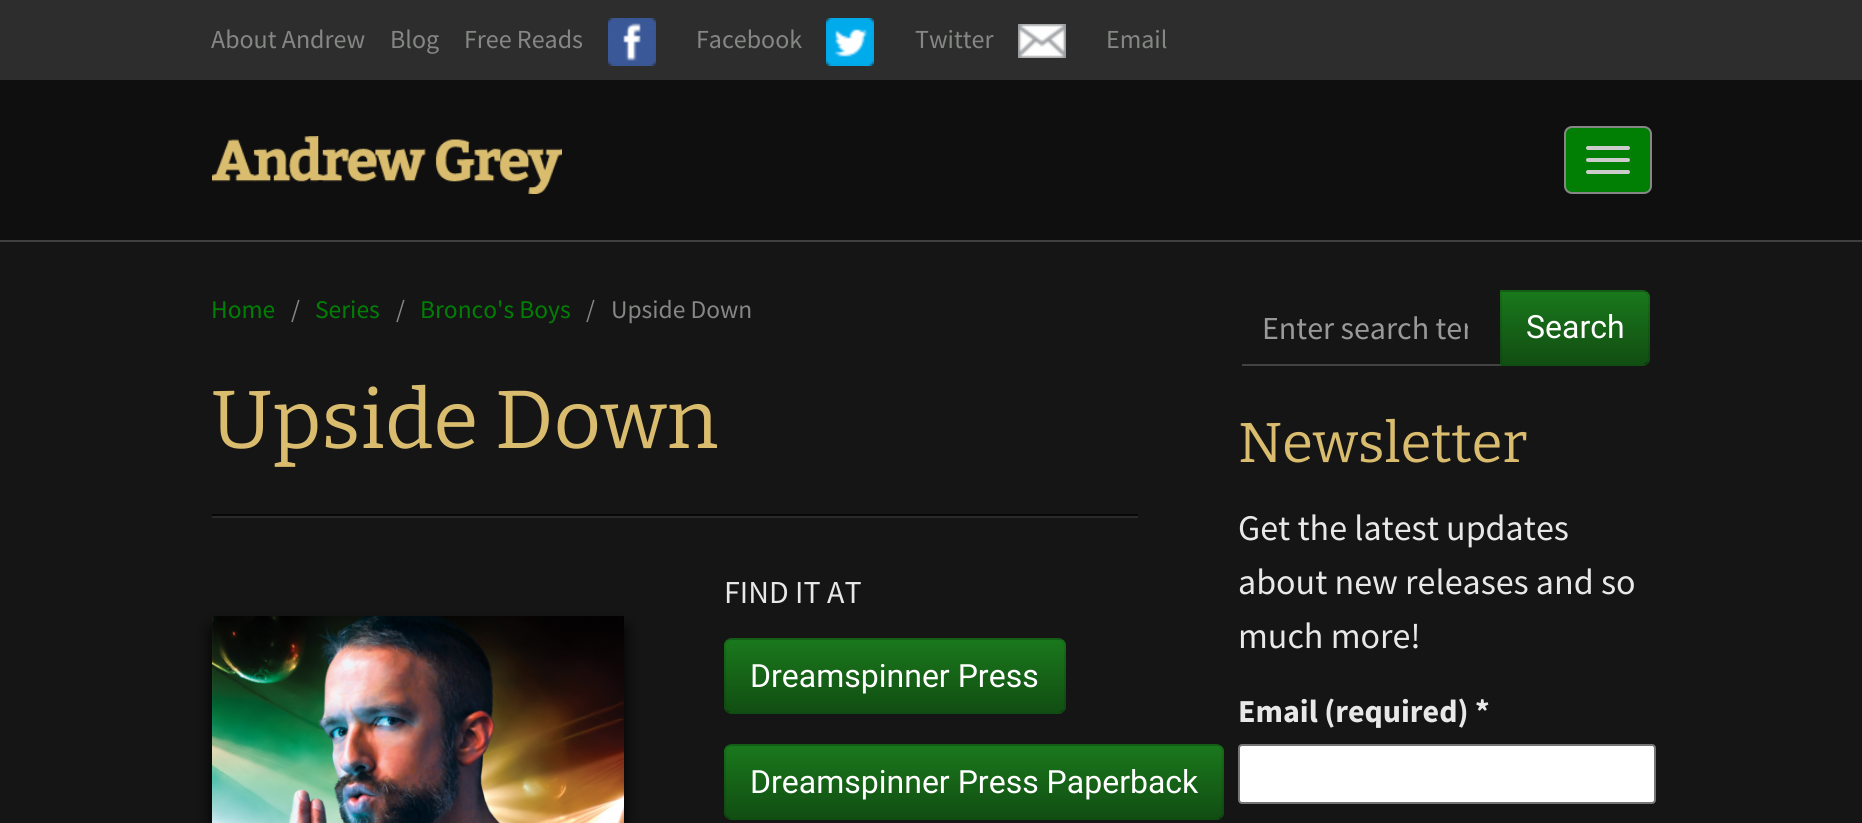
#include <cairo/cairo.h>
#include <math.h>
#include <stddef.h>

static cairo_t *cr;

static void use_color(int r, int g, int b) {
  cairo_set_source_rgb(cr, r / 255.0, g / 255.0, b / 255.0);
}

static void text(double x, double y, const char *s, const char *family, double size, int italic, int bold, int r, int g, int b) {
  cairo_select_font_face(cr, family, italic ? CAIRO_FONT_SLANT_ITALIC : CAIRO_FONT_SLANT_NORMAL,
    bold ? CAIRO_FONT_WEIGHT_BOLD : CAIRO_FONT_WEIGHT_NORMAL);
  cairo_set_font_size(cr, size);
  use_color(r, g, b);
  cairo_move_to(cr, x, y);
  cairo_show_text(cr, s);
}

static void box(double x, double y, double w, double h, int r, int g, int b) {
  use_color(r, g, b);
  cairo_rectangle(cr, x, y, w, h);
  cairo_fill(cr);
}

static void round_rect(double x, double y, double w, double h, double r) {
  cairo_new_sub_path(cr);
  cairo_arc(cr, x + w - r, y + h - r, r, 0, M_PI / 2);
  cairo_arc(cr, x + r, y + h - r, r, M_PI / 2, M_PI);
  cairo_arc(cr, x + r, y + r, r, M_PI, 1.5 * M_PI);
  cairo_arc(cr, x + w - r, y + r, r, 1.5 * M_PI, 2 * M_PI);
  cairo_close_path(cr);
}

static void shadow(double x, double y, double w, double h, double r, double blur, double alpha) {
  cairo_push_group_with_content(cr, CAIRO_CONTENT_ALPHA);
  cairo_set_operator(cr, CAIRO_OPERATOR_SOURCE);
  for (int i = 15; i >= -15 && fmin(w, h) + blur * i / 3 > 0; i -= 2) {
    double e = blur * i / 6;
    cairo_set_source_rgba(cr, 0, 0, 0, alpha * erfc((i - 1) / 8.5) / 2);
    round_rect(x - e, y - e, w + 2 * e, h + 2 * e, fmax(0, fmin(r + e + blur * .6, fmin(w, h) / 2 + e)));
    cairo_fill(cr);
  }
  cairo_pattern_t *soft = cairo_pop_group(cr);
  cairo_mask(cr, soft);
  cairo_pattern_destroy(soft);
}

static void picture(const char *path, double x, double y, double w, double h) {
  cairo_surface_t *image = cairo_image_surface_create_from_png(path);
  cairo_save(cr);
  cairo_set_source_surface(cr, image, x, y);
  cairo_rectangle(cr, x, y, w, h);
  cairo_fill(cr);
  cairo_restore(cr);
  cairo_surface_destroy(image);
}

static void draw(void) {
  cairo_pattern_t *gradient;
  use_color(21, 21, 21);
  cairo_paint(cr);
  box(0, 0, 1862, 80, 45, 45, 45);
  picture("img_01.png", 608, 18, 48, 48);
  picture("img_02.png", 826, 18, 48, 48);
  picture("img_03.png", 1018, 24, 48, 34);
  box(0, 80, 1862, 160, 15, 15, 15);
  box(0, 240, 1862, 2, 63, 63, 63);
  picture("img_04.png", 212, 136, 350, 58);
  use_color(0, 127, 4);
  round_rect(1565, 127, 86, 66, 7);
  cairo_fill_preserve(cr);
  use_color(132, 135, 132);
  cairo_stroke(cr);
  use_color(204, 204, 204);
  round_rect(1586, 146, 44, 4, 2);
  cairo_fill(cr);
  round_rect(1586, 158, 44, 4, 2);
  cairo_fill(cr);
  round_rect(1586, 170, 44, 4, 2);
  cairo_fill(cr);
  box(212, 514, 926, 2, 7, 7, 7);
  box(212, 516, 926, 2, 43, 42, 42);
  use_color(0, 0, 0);
  shadow(212, 628, 412, 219, 0, 8, 0.99);
  picture("img_05.png", 212, 616, 412, 207);
  use_color(22, 103, 24);
  round_rect(724, 638, 342, 76, 8);
  cairo_fill(cr);
  cairo_save(cr);
  round_rect(724, 638, 342, 76, 8);
  cairo_clip(cr);
  gradient = cairo_pattern_create_linear(895, 640, 895, 712);
  cairo_pattern_add_color_stop_rgba(gradient, 0, 0.102, 0.471, 0.11, 1);
  cairo_pattern_add_color_stop_rgba(gradient, 1, 0.067, 0.306, 0.071, 1);
  cairo_set_source(cr, gradient);
  cairo_pattern_destroy(gradient);
  cairo_rectangle(cr, 724, 640, 342, 72);
  cairo_fill(cr);
  cairo_restore(cr);
  cairo_new_path(cr);
  cairo_move_to(cr, 1063, 711);
  cairo_curve_to(cr, 1061.5, 712.5, 1060, 713, 1058, 713);
  cairo_line_to(cr, 732, 713);
  cairo_curve_to(cr, 730, 713, 728.5, 712.5, 727, 711);
  cairo_set_source_rgba(cr, 0, 0, 0, 0.25);
  cairo_stroke(cr);
  cairo_new_path(cr);
  cairo_move_to(cr, 727, 711);
  cairo_curve_to(cr, 725.5, 709.5, 725, 708, 725, 706);
  cairo_line_to(cr, 725, 646);
  cairo_curve_to(cr, 725, 644, 725.5, 642.5, 727, 641);
  cairo_curve_to(cr, 728.5, 639.5, 730, 639, 732, 639);
  cairo_line_to(cr, 1058, 639);
  cairo_curve_to(cr, 1060, 639, 1061.5, 639.5, 1063, 641);
  cairo_curve_to(cr, 1064.5, 642.5, 1065, 644, 1065, 646);
  cairo_line_to(cr, 1065, 706);
  cairo_curve_to(cr, 1065, 708, 1064.5, 709.5, 1063, 711);
  cairo_set_source_rgba(cr, 0, 0, 0, 0.1);
  cairo_stroke(cr);
  use_color(22, 103, 24);
  round_rect(724, 744, 500, 76, 8);
  cairo_fill(cr);
  cairo_save(cr);
  round_rect(724, 744, 500, 76, 8);
  cairo_clip(cr);
  gradient = cairo_pattern_create_linear(974, 746, 974, 818);
  cairo_pattern_add_color_stop_rgba(gradient, 0, 0.102, 0.471, 0.11, 1);
  cairo_pattern_add_color_stop_rgba(gradient, 1, 0.067, 0.306, 0.071, 1);
  cairo_set_source(cr, gradient);
  cairo_pattern_destroy(gradient);
  cairo_rectangle(cr, 724, 746, 500, 72);
  cairo_fill(cr);
  cairo_restore(cr);
  cairo_new_path(cr);
  cairo_move_to(cr, 1221, 817);
  cairo_curve_to(cr, 1219.5, 818.5, 1218, 819, 1216, 819);
  cairo_line_to(cr, 732, 819);
  cairo_curve_to(cr, 730, 819, 728.5, 818.5, 727, 817);
  cairo_set_source_rgba(cr, 0, 0, 0, 0.25);
  cairo_stroke(cr);
  cairo_new_path(cr);
  cairo_move_to(cr, 727, 817);
  cairo_curve_to(cr, 725.5, 815.5, 725, 814, 725, 812);
  cairo_line_to(cr, 725, 752);
  cairo_curve_to(cr, 725, 750, 725.5, 748.5, 727, 747);
  cairo_curve_to(cr, 728.5, 745.5, 730, 745, 732, 745);
  cairo_line_to(cr, 1216, 745);
  cairo_curve_to(cr, 1218, 745, 1219.5, 745.5, 1221, 747);
  cairo_curve_to(cr, 1222.5, 748.5, 1223, 750, 1223, 752);
  cairo_line_to(cr, 1223, 812);
  cairo_curve_to(cr, 1223, 814, 1222.5, 815.5, 1221, 817);
  cairo_set_source_rgba(cr, 0, 0, 0, 0.1);
  cairo_stroke(cr);
  box(1242, 364, 258, 2, 66, 66, 66);
  use_color(22, 103, 24);
  cairo_new_path(cr);
  cairo_move_to(cr, 1500, 290);
  cairo_line_to(cr, 1642, 290);
  cairo_curve_to(cr, 1646.5, 290, 1650, 293.5, 1650, 298);
  cairo_line_to(cr, 1650, 358);
  cairo_curve_to(cr, 1650, 362.5, 1646.5, 366, 1642, 366);
  cairo_line_to(cr, 1500, 366);
  cairo_close_path(cr);
  cairo_fill(cr);
  cairo_save(cr);
  cairo_new_path(cr);
  cairo_move_to(cr, 1500, 290);
  cairo_line_to(cr, 1642, 290);
  cairo_curve_to(cr, 1646.5, 290, 1650, 293.5, 1650, 298);
  cairo_line_to(cr, 1650, 358);
  cairo_curve_to(cr, 1650, 362.5, 1646.5, 366, 1642, 366);
  cairo_line_to(cr, 1500, 366);
  cairo_close_path(cr);
  cairo_clip(cr);
  gradient = cairo_pattern_create_linear(1575, 292, 1575, 364);
  cairo_pattern_add_color_stop_rgba(gradient, 0, 0.102, 0.471, 0.11, 1);
  cairo_pattern_add_color_stop_rgba(gradient, 1, 0.067, 0.306, 0.071, 1);
  cairo_set_source(cr, gradient);
  cairo_pattern_destroy(gradient);
  cairo_rectangle(cr, 1500, 292, 150, 72);
  cairo_fill(cr);
  cairo_restore(cr);
  cairo_set_source_rgba(cr, 0, 0, 0, 0.1);
  cairo_new_path(cr);
  cairo_move_to(cr, 1500, 290);
  cairo_line_to(cr, 1502, 292);
  cairo_line_to(cr, 1643, 292);
  cairo_line_to(cr, 1646, 294);
  cairo_line_to(cr, 1648, 292);
  cairo_curve_to(cr, 1646, 291, 1644, 290, 1642, 290);
  cairo_close_path(cr);
  cairo_fill(cr);
  cairo_new_path(cr);
  cairo_move_to(cr, 1650, 358);
  cairo_line_to(cr, 1650, 298);
  cairo_curve_to(cr, 1650, 296, 1649, 294, 1648, 292);
  cairo_line_to(cr, 1646, 294);
  cairo_curve_to(cr, 1647, 295, 1648, 296, 1648, 298);
  cairo_line_to(cr, 1648, 358);
  cairo_curve_to(cr, 1648, 360, 1647, 361, 1646, 362);
  cairo_line_to(cr, 1648, 364);
  cairo_curve_to(cr, 1649, 362, 1650, 360, 1650, 358);
  cairo_close_path(cr);
  cairo_fill(cr);
  cairo_set_source_rgba(cr, 0, 0, 0, 0.25);
  cairo_new_path(cr);
  cairo_move_to(cr, 1642, 366);
  cairo_curve_to(cr, 1644, 366, 1646, 365, 1648, 364);
  cairo_line_to(cr, 1646, 362);
  cairo_line_to(cr, 1643, 364);
  cairo_line_to(cr, 1502, 364);
  cairo_line_to(cr, 1500, 366);
  cairo_close_path(cr);
  cairo_fill(cr);
  cairo_set_source_rgba(cr, 0, 0, 0, 0.1);
  cairo_new_path(cr);
  cairo_move_to(cr, 1500, 290);
  cairo_line_to(cr, 1500, 366);
  cairo_line_to(cr, 1502, 364);
  cairo_line_to(cr, 1502, 292);
  cairo_close_path(cr);
  cairo_fill(cr);
  use_color(255, 255, 255);
  round_rect(1239, 745, 416, 58, 3);
  cairo_fill_preserve(cr);
  use_color(118, 118, 118);
  cairo_stroke(cr);
  text(211, 48, "About Andrew", "Source Sans Pro", 26, 0, 0, 132, 135, 132);
  text(390, 48, "Blog", "Source Sans Pro", 26, 0, 0, 132, 135, 132);
  text(464, 48, "Free Reads", "Source Sans Pro", 26, 0, 0, 132, 135, 132);
  text(696, 48, "Facebook", "Source Sans Pro", 26, 0, 0, 132, 135, 132);
  text(915, 48, "Twitter", "Source Sans Pro", 26, 0, 0, 132, 135, 132);
  text(1106, 48, "Email", "Source Sans Pro", 26, 0, 0, 132, 135, 132);
  text(211, 318, "Home", "Source Sans Pro", 25.5, 0, 0, 0, 127, 4);
  text(291, 318, "/", "Source Sans Pro", 25.5, 0, 0, 132, 135, 132);
  text(315, 318, "Series", "Source Sans Pro", 25.5, 0, 0, 0, 127, 4);
  text(396, 318, "/", "Source Sans Pro", 25.5, 0, 0, 132, 135, 132);
  text(420, 318, "Bronco's Boys", "Source Sans Pro", 25.5, 0, 0, 0, 127, 4);
  text(586, 318, "/", "Source Sans Pro", 25.5, 0, 0, 132, 135, 132);
  text(611, 318, "Upside Down", "Source Sans Pro", 25.5, 0, 0, 132, 135, 132);
  text(211, 448, "Upside Down", "Bitter", 82, 0, 0, 218, 188, 110);
  text(724, 603, "FIND IT AT", "Source Sans Pro", 32, 0, 0, 232, 232, 232);
  text(750, 687, "Dreamspinner Press", "Roboto", 32, 0, 0, 255, 255, 255);
  text(750, 793, "Dreamspinner Press Paperback", "Roboto", 32, 0, 0, 255, 255, 255);
  cairo_save(cr);
  cairo_rectangle(cr, 1262, 308, 206, 40);
  cairo_clip(cr);
  text(1262, 339, "Enter search ter", "Source Sans Pro", 32, 0, 0, 153, 153, 153);
  cairo_restore(cr);
  text(1526, 338, "Search", "Roboto", 32, 0, 0, 255, 255, 255);
  text(1238, 462, "Newsletter", "Bitter", 56, 0, 0, 218, 188, 110);
  text(1238, 540, "Get the latest updates", "Source Sans Pro", 36, 0, 0, 232, 232, 232);
  text(1238, 594, "about new releases and so", "Source Sans Pro", 36, 0, 0, 232, 232, 232);
  text(1238, 648, "much more!", "Source Sans Pro", 36, 0, 0, 232, 232, 232);
  text(1238, 722, "Email (required) *", "Source Sans Pro", 32, 0, 1, 232, 232, 232);
}

int main(void) {
  cairo_surface_t *surface = cairo_image_surface_create(CAIRO_FORMAT_RGB24, 1862, 823);
  cr = cairo_create(surface);
  cairo_font_options_t *options = cairo_font_options_create();
  cairo_font_options_set_hint_metrics(options, CAIRO_HINT_METRICS_OFF);
  cairo_font_options_set_hint_style(options, CAIRO_HINT_STYLE_NONE);
  cairo_set_font_options(cr, options);
  cairo_set_miter_limit(cr, 4);
  draw();
  cairo_surface_write_to_png(surface, "out.png");
  cairo_font_options_destroy(options);
  cairo_destroy(cr);
  cairo_surface_destroy(surface);
  return 0;
}
